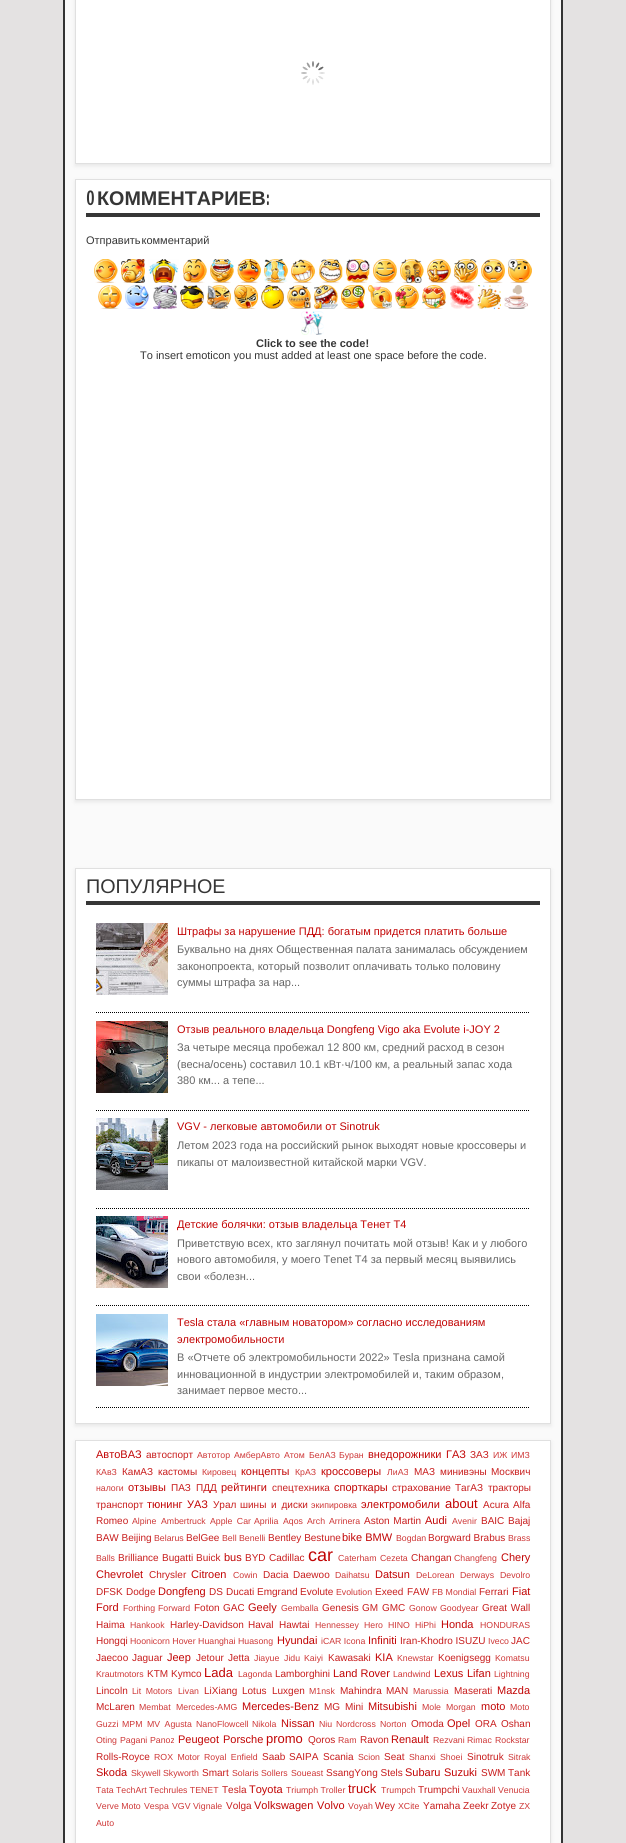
#include <cairo/cairo.h>
#include <math.h>
#include <stddef.h>

static cairo_t *cr;

static void use_color(int r, int g, int b) {
  cairo_set_source_rgb(cr, r / 255.0, g / 255.0, b / 255.0);
}

static void text(double x, double y, const char *s, const char *family, double size, int italic, int bold, int r, int g, int b) {
  cairo_select_font_face(cr, family, italic ? CAIRO_FONT_SLANT_ITALIC : CAIRO_FONT_SLANT_NORMAL,
    bold ? CAIRO_FONT_WEIGHT_BOLD : CAIRO_FONT_WEIGHT_NORMAL);
  cairo_set_font_size(cr, size);
  use_color(r, g, b);
  cairo_move_to(cr, x, y);
  cairo_show_text(cr, s);
}

static void spaced_text(double x, double y, const char *s, double letter, double word) {
  cairo_move_to(cr, x, y);
  while (*s) {
    char ch[5] = {0};
    int n = 0;
    do ch[n++] = *s++; while ((*s & 0xC0) == 0x80);
    cairo_show_text(cr, ch);
    cairo_rel_move_to(cr, letter + word * (*ch == ' '), 0);
  }
}

static void box(double x, double y, double w, double h, int r, int g, int b) {
  use_color(r, g, b);
  cairo_rectangle(cr, x, y, w, h);
  cairo_fill(cr);
}

static void round_rect(double x, double y, double w, double h, double r) {
  cairo_new_sub_path(cr);
  cairo_arc(cr, x + w - r, y + h - r, r, 0, M_PI / 2);
  cairo_arc(cr, x + r, y + h - r, r, M_PI / 2, M_PI);
  cairo_arc(cr, x + r, y + r, r, M_PI, 1.5 * M_PI);
  cairo_arc(cr, x + w - r, y + r, r, 1.5 * M_PI, 2 * M_PI);
  cairo_close_path(cr);
}

static void shadow(double x, double y, double w, double h, double r, double blur, double alpha) {
  cairo_push_group_with_content(cr, CAIRO_CONTENT_ALPHA);
  cairo_set_operator(cr, CAIRO_OPERATOR_SOURCE);
  for (int i = 15; i >= -15 && fmin(w, h) + blur * i / 3 > 0; i -= 2) {
    double e = blur * i / 6;
    cairo_set_source_rgba(cr, 0, 0, 0, alpha * erfc((i - 1) / 8.5) / 2);
    round_rect(x - e, y - e, w + 2 * e, h + 2 * e, fmax(0, fmin(r + e + blur * .6, fmin(w, h) / 2 + e)));
    cairo_fill(cr);
  }
  cairo_pattern_t *soft = cairo_pop_group(cr);
  cairo_mask(cr, soft);
  cairo_pattern_destroy(soft);
}

static void picture(const char *path, double x, double y, double w, double h) {
  cairo_surface_t *image = cairo_image_surface_create_from_png(path);
  cairo_save(cr);
  cairo_set_source_surface(cr, image, x, y);
  cairo_rectangle(cr, x, y, w, h);
  cairo_fill(cr);
  cairo_restore(cr);
  cairo_surface_destroy(image);
}

static void draw(void) {
  use_color(228, 226, 226);
  cairo_paint(cr);
  box(65, 0, 496, 1843, 250, 250, 250);
  box(561, 0, 2, 1843, 51, 51, 51);
  box(63, 0, 2, 1843, 51, 51, 51);
  use_color(231, 231, 231);
  shadow(75, -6, 476, 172, 0, 2, 1);
  use_color(255, 255, 255);
  cairo_rectangle(cr, 75.5, -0.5, 475, 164);
  cairo_fill_preserve(cr);
  use_color(224, 224, 224);
  cairo_set_line_width(cr, 1);
  cairo_stroke(cr);
  picture("img_01.png", 301, 61, 24, 24);
  use_color(231, 231, 231);
  shadow(75, 181, 476, 621, 0, 2, 1);
  use_color(255, 255, 255);
  cairo_rectangle(cr, 75.5, 179.5, 475, 620);
  cairo_fill_preserve(cr);
  use_color(224, 224, 224);
  cairo_stroke(cr);
  box(86, 213, 454, 4, 54, 54, 54);
  picture("img_02.png", 94, 259, 24, 24);
  picture("img_03.png", 121, 259, 24, 24);
  picture("img_04.png", 148, 259, 31, 24);
  picture("img_05.png", 183, 259, 24, 24);
  picture("img_06.png", 210, 259, 24, 24);
  picture("img_07.png", 237, 259, 24, 24);
  picture("img_08.png", 264, 259, 24, 24);
  picture("img_09.png", 291, 259, 24, 24);
  picture("img_10.png", 319, 259, 24, 24);
  picture("img_11.png", 346, 259, 24, 24);
  picture("img_12.png", 373, 259, 24, 24);
  picture("img_13.png", 400, 259, 24, 24);
  picture("img_14.png", 427, 259, 24, 24);
  picture("img_15.png", 454, 259, 24, 24);
  picture("img_16.png", 481, 259, 24, 24);
  picture("img_17.png", 508, 259, 24, 24);
  picture("img_18.png", 98, 285, 24, 24);
  picture("img_19.png", 125, 285, 24, 24);
  picture("img_20.png", 153, 285, 24, 24);
  picture("img_21.png", 180, 285, 24, 24);
  picture("img_22.png", 207, 285, 24, 24);
  picture("img_23.png", 234, 285, 24, 24);
  picture("img_24.png", 261, 285, 23, 24);
  picture("img_25.png", 287, 285, 24, 24);
  picture("img_26.png", 314, 285, 24, 24);
  picture("img_27.png", 341, 285, 24, 24);
  picture("img_28.png", 368, 285, 24, 24);
  picture("img_29.png", 395, 285, 24, 24);
  picture("img_30.png", 422, 285, 24, 24);
  picture("img_31.png", 450, 285, 24, 24);
  picture("img_32.png", 477, 285, 24, 24);
  picture("img_33.png", 504, 285, 24, 24);
  picture("img_34.png", 301, 311, 23, 24);
  use_color(231, 231, 231);
  shadow(75, 870, 476, 556, 0, 2, 1);
  use_color(255, 255, 255);
  cairo_rectangle(cr, 75.5, 868.5, 475, 555);
  cairo_fill_preserve(cr);
  use_color(224, 224, 224);
  cairo_stroke(cr);
  box(86, 901, 454, 4, 54, 54, 54);
  cairo_new_path(cr);
  cairo_move_to(cr, 96, 1012.5);
  cairo_line_to(cr, 530, 1012.5);
  use_color(0, 0, 0);
  cairo_set_dash(cr, (double[]){1, 1}, 2, 0);
  cairo_stroke(cr);
  picture("img_35.png", 96, 923, 72, 72);
  cairo_new_path(cr);
  cairo_move_to(cr, 96, 1110.5);
  cairo_line_to(cr, 530, 1110.5);
  cairo_stroke(cr);
  picture("img_36.png", 96, 1021, 72, 72);
  cairo_new_path(cr);
  cairo_move_to(cr, 96, 1208.5);
  cairo_line_to(cr, 530, 1208.5);
  cairo_stroke(cr);
  picture("img_37.png", 96, 1118, 72, 72);
  cairo_new_path(cr);
  cairo_move_to(cr, 96, 1305.5);
  cairo_line_to(cr, 530, 1305.5);
  cairo_stroke(cr);
  picture("img_38.png", 96, 1216, 72, 72);
  cairo_new_path(cr);
  cairo_move_to(cr, 96, 1407.5);
  cairo_line_to(cr, 530, 1407.5);
  cairo_stroke(cr);
  picture("img_39.png", 96, 1314, 72, 72);
  use_color(231, 231, 231);
  shadow(75, 1442, 476, 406, 0, 2, 1);
  use_color(255, 255, 255);
  cairo_rectangle(cr, 75.5, 1440.5, 475, 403);
  cairo_fill_preserve(cr);
  use_color(224, 224, 224);
  cairo_set_dash(cr, NULL, 0, 0);
  cairo_stroke(cr);
  text(86, 205, "0", "BenchNine", 19.75, 0, 1, 54, 54, 54);
  text(97, 205, "КОММЕНТАРИЕВ", "Liberation Sans", 19.75, 0, 1, 54, 54, 54);
  text(266, 205, ":", "BenchNine", 19.75, 0, 1, 54, 54, 54);
  cairo_select_font_face(cr, "Liberation Sans", CAIRO_FONT_SLANT_NORMAL, CAIRO_FONT_WEIGHT_NORMAL);
  cairo_set_font_size(cr, 11);
  spaced_text(86, 244, "Отправить комментарий", 0, -2);
  text(256, 347, "Click to see the code!", "Liberation Sans", 11, 0, 1, 54, 54, 54);
  text(140, 359, "To insert emoticon you must added at least one space before the code.", "Liberation Sans", 11, 0, 0, 54, 54, 54);
  text(86, 893, "ПОПУЛЯРНОЕ", "Liberation Sans", 19.75, 0, 0, 54, 54, 54);
  text(177, 935, "Штрафы за нарушение ПДД: богатым придется платить больше", "Liberation Sans", 11, 0, 0, 194, 4, 4);
  text(177, 953, "Буквально на днях Общественная палата занималась обсуждением", "Liberation Sans", 11, 0, 0, 102, 102, 102);
  text(177, 970, "законопроекта, который позволит оплачивать только половину", "Liberation Sans", 11, 0, 0, 102, 102, 102);
  text(177, 986, "суммы штрафа за нар...", "Liberation Sans", 11, 0, 0, 102, 102, 102);
  text(177, 1033, "Отзыв реального владельца Dongfeng Vigo aka Evolute i-JOY 2", "Liberation Sans", 11, 0, 0, 194, 4, 4);
  text(177, 1051, "За четыре месяца пробежал 12 800 км, средний расход в сезон", "Liberation Sans", 11, 0, 0, 102, 102, 102);
  text(177, 1068, "(весна/осень) составил 10.1 кВт·ч/100 км, а реальный запас хода", "Liberation Sans", 11, 0, 0, 102, 102, 102);
  text(177, 1084, "380 км... а тепе...", "Liberation Sans", 11, 0, 0, 102, 102, 102);
  text(177, 1130, "VGV - легковые автомобили от Sinotruk", "Liberation Sans", 11, 0, 0, 194, 4, 4);
  text(177, 1149, "Летом 2023 года на российский рынок выходят новые кроссоверы и", "Liberation Sans", 11, 0, 0, 102, 102, 102);
  text(177, 1166, "пикапы от малоизвестной китайской марки VGV.", "Liberation Sans", 11, 0, 0, 102, 102, 102);
  text(177, 1228, "Детские болячки: отзыв владельца Тенет Т4", "Liberation Sans", 11, 0, 0, 194, 4, 4);
  text(177, 1247, "Приветствую всех, кто заглянул почитать мой отзыв! Как и у любого", "Liberation Sans", 11, 0, 0, 102, 102, 102);
  text(177, 1263, "нового автомобиля, у моего Tenet T4 за первый месяц выявились", "Liberation Sans", 11, 0, 0, 102, 102, 102);
  text(177, 1280, "свои «болезн...", "Liberation Sans", 11, 0, 0, 102, 102, 102);
  text(177, 1326, "Tesla стала «главным новатором» согласно исследованиям", "Liberation Sans", 11, 0, 0, 194, 4, 4);
  text(177, 1343, "электромобильности", "Liberation Sans", 11, 0, 0, 194, 4, 4);
  text(177, 1361, "В «Отчете об электромобильности 2022» Tesla признана самой", "Liberation Sans", 11, 0, 0, 102, 102, 102);
  text(177, 1378, "инновационной в индустрии электромобилей и, таким образом,", "Liberation Sans", 11, 0, 0, 102, 102, 102);
  text(177, 1394, "занимает первое место...", "Liberation Sans", 11, 0, 0, 102, 102, 102);
  text(96, 1458, "АвтоВАЗ", "Liberation Sans", 11, 0, 0, 194, 4, 4);
  text(146, 1458, "автоспорт", "Liberation Sans", 10, 0, 0, 200, 29, 29);
  text(197, 1458, "Автотор", "Liberation Sans", 8.75, 0, 0, 206, 54, 54);
  text(234, 1458, "АмберАвто", "Liberation Sans", 8.75, 0, 0, 206, 54, 54);
  text(284, 1458, "Атом", "Liberation Sans", 8.75, 0, 0, 206, 54, 54);
  text(309, 1458, "БелАЗ", "Liberation Sans", 8.75, 0, 0, 206, 54, 54);
  text(339, 1458, "Буран", "Liberation Sans", 8.75, 0, 0, 206, 54, 54);
  text(368, 1458, "внедорожники", "Liberation Sans", 11, 0, 0, 194, 4, 4);
  text(446, 1458, "ГАЗ", "Liberation Sans", 11, 0, 0, 194, 4, 4);
  text(470, 1458, "ЗАЗ", "Liberation Sans", 10, 0, 0, 200, 29, 29);
  text(493, 1458, "ИЖ", "Liberation Sans", 8.75, 0, 0, 206, 54, 54);
  text(511, 1458, "ИМЗ", "Liberation Sans", 8.75, 0, 0, 206, 54, 54);
  text(96, 1475, "КАвЗ", "Liberation Sans", 8.75, 0, 0, 206, 54, 54);
  text(122, 1475, "КамАЗ", "Liberation Sans", 10, 0, 0, 200, 29, 29);
  text(158, 1475, "кастомы", "Liberation Sans", 10, 0, 0, 200, 29, 29);
  text(202, 1475, "Кировец", "Liberation Sans", 8.75, 0, 0, 206, 54, 54);
  text(241, 1475, "концепты", "Liberation Sans", 11, 0, 0, 194, 4, 4);
  text(295, 1475, "КрАЗ", "Liberation Sans", 8.75, 0, 0, 206, 54, 54);
  text(321, 1475, "кроссоверы", "Liberation Sans", 11, 0, 0, 194, 4, 4);
  text(387, 1475, "ЛиАЗ", "Liberation Sans", 8.75, 0, 0, 206, 54, 54);
  text(414, 1475, "МАЗ", "Liberation Sans", 10, 0, 0, 200, 29, 29);
  text(440, 1475, "минивэны", "Liberation Sans", 10, 0, 0, 200, 29, 29);
  text(491, 1475, "Москвич", "Liberation Sans", 10, 0, 0, 200, 29, 29);
  text(96, 1491, "налоги", "Liberation Sans", 8.75, 0, 0, 206, 54, 54);
  text(128, 1491, "отзывы", "Liberation Sans", 11, 0, 0, 194, 4, 4);
  text(171, 1491, "ПАЗ", "Liberation Sans", 10, 0, 0, 200, 29, 29);
  text(196, 1491, "ПДД", "Liberation Sans", 10, 0, 0, 200, 29, 29);
  text(221, 1491, "рейтинги", "Liberation Sans", 11, 0, 0, 194, 4, 4);
  text(272, 1491, "спецтехника", "Liberation Sans", 10, 0, 0, 200, 29, 29);
  text(334, 1491, "спорткары", "Liberation Sans", 11, 0, 0, 194, 4, 4);
  text(392, 1491, "страхование", "Liberation Sans", 10, 0, 0, 200, 29, 29);
  text(455, 1491, "ТагАЗ", "Liberation Sans", 10, 0, 0, 200, 29, 29);
  text(488, 1491, "тракторы", "Liberation Sans", 10, 0, 0, 200, 29, 29);
  text(96, 1508, "транспорт", "Liberation Sans", 10, 0, 0, 200, 29, 29);
  text(147, 1508, "тюнинг", "Liberation Sans", 11, 0, 0, 194, 4, 4);
  text(187, 1508, "УАЗ", "Liberation Sans", 11, 0, 0, 194, 4, 4);
  text(213, 1508, "Урал", "Liberation Sans", 10, 0, 0, 200, 29, 29);
  spaced_text(240, 1508, "шины и диски", 0, 2);
  text(311, 1508, "экипировка", "Liberation Sans", 8.75, 0, 0, 206, 54, 54);
  text(361, 1508, "электромобили", "Liberation Sans", 11, 0, 0, 194, 4, 4);
  text(445, 1508, "about", "Liberation Sans", 13, 0, 0, 194, 4, 4);
  text(483, 1508, "Acura", "Liberation Sans", 10, 0, 0, 200, 29, 29);
  text(513, 1508, "Alfa", "Liberation Sans", 10, 0, 0, 200, 29, 29);
  text(96, 1524, "Romeo", "Liberation Sans", 10, 0, 0, 200, 29, 29);
  text(132, 1524, "Alpine", "Liberation Sans", 8.75, 0, 0, 206, 54, 54);
  text(161, 1524, "Ambertruck", "Liberation Sans", 8.75, 0, 0, 206, 54, 54);
  spaced_text(210, 1524, "Apple Car", 0, 2);
  text(254, 1524, "Aprilia", "Liberation Sans", 8.75, 0, 0, 206, 54, 54);
  text(283, 1524, "Aqos", "Liberation Sans", 8.75, 0, 0, 206, 54, 54);
  text(307, 1524, "Arch", "Liberation Sans", 8.75, 0, 0, 206, 54, 54);
  text(329, 1524, "Arrinera", "Liberation Sans", 8.75, 0, 0, 206, 54, 54);
  cairo_set_font_size(cr, 10);
  use_color(200, 29, 29);
  spaced_text(364, 1524, "Aston Martin", 0, 1);
  text(425, 1524, "Audi", "Liberation Sans", 11, 0, 0, 194, 4, 4);
  text(452, 1524, "Avenir", "Liberation Sans", 8.75, 0, 0, 206, 54, 54);
  text(481, 1524, "BAIC", "Liberation Sans", 10, 0, 0, 200, 29, 29);
  text(508, 1524, "Bajaj", "Liberation Sans", 10, 0, 0, 200, 29, 29);
  text(96, 1541, "BAW Beijing", "Liberation Sans", 10, 0, 0, 200, 29, 29);
  text(154, 1541, "Belarus", "Liberation Sans", 8.75, 0, 0, 206, 54, 54);
  text(186, 1541, "BelGee", "Liberation Sans", 10, 0, 0, 200, 29, 29);
  text(222, 1541, "Bell Benelli", "Liberation Sans", 8.75, 0, 0, 206, 54, 54);
  text(268, 1541, "Bentley Bestune", "Liberation Sans", 10, 0, 0, 200, 29, 29);
  text(342, 1541, "bike BMW", "Liberation Sans", 11, 0, 0, 194, 4, 4);
  text(396, 1541, "Bogdan", "Liberation Sans", 8.75, 0, 0, 206, 54, 54);
  text(428, 1541, "Borgward Brabus", "Liberation Sans", 10, 0, 0, 200, 29, 29);
  text(508, 1541, "Brass", "Liberation Sans", 8.75, 0, 0, 206, 54, 54);
  text(96, 1561, "Balls", "Liberation Sans", 8.75, 0, 0, 206, 54, 54);
  text(118, 1561, "Brilliance", "Liberation Sans", 10, 0, 0, 200, 29, 29);
  text(162, 1561, "Bugatti", "Liberation Sans", 10, 0, 0, 200, 29, 29);
  text(196, 1561, "Buick", "Liberation Sans", 10, 0, 0, 200, 29, 29);
  text(224, 1561, "bus", "Liberation Sans", 11, 0, 0, 194, 4, 4);
  text(245, 1561, "BYD", "Liberation Sans", 10, 0, 0, 200, 29, 29);
  text(269, 1561, "Cadillac", "Liberation Sans", 10, 0, 0, 200, 29, 29);
  text(308, 1561, "car", "Liberation Sans", 18, 0, 0, 194, 4, 4);
  text(338, 1561, "Caterham", "Liberation Sans", 8.75, 0, 0, 206, 54, 54);
  text(380, 1561, "Cezeta", "Liberation Sans", 8.75, 0, 0, 206, 54, 54);
  text(411, 1561, "Changan", "Liberation Sans", 10, 0, 0, 200, 29, 29);
  text(454, 1561, "Changfeng", "Liberation Sans", 8.75, 0, 0, 206, 54, 54);
  text(501, 1561, "Chery", "Liberation Sans", 11, 0, 0, 194, 4, 4);
  text(96, 1578, "Chevrolet", "Liberation Sans", 11, 0, 0, 194, 4, 4);
  text(149, 1578, "Chrysler", "Liberation Sans", 10, 0, 0, 200, 29, 29);
  text(191, 1578, "Citroen", "Liberation Sans", 11, 0, 0, 194, 4, 4);
  text(233, 1578, "Cowin", "Liberation Sans", 8.75, 0, 0, 206, 54, 54);
  text(263, 1578, "Dacia", "Liberation Sans", 10, 0, 0, 200, 29, 29);
  text(293, 1578, "Daewoo", "Liberation Sans", 10, 0, 0, 200, 29, 29);
  text(335, 1578, "Daihatsu", "Liberation Sans", 8.75, 0, 0, 206, 54, 54);
  text(375, 1578, "Datsun", "Liberation Sans", 11, 0, 0, 194, 4, 4);
  text(416, 1578, "DeLorean", "Liberation Sans", 8.75, 0, 0, 206, 54, 54);
  text(460, 1578, "Derways", "Liberation Sans", 8.75, 0, 0, 206, 54, 54);
  text(500, 1578, "Devolro", "Liberation Sans", 8.75, 0, 0, 206, 54, 54);
  text(96, 1595, "DFSK", "Liberation Sans", 10, 0, 0, 200, 29, 29);
  text(126, 1595, "Dodge", "Liberation Sans", 10, 0, 0, 200, 29, 29);
  text(158, 1595, "Dongfeng", "Liberation Sans", 11, 0, 0, 194, 4, 4);
  text(209, 1595, "DS", "Liberation Sans", 10, 0, 0, 200, 29, 29);
  text(226, 1595, "Ducati", "Liberation Sans", 10, 0, 0, 200, 29, 29);
  text(257, 1595, "Emgrand", "Liberation Sans", 10, 0, 0, 200, 29, 29);
  text(300, 1595, "Evolute", "Liberation Sans", 10, 0, 0, 200, 29, 29);
  text(336, 1595, "Evolution", "Liberation Sans", 8.75, 0, 0, 206, 54, 54);
  text(375, 1595, "Exeed", "Liberation Sans", 10, 0, 0, 200, 29, 29);
  text(407, 1595, "FAW", "Liberation Sans", 10, 0, 0, 200, 29, 29);
  text(432, 1595, "FB Mondial", "Liberation Sans", 8.75, 0, 0, 206, 54, 54);
  text(479, 1595, "Ferrari", "Liberation Sans", 10, 0, 0, 200, 29, 29);
  text(512, 1595, "Fiat", "Liberation Sans", 11, 0, 0, 194, 4, 4);
  text(96, 1611, "Ford", "Liberation Sans", 11, 0, 0, 194, 4, 4);
  text(123, 1611, "Forthing", "Liberation Sans", 8.75, 0, 0, 206, 54, 54);
  text(158, 1611, "Forward", "Liberation Sans", 8.75, 0, 0, 206, 54, 54);
  text(194, 1611, "Foton", "Liberation Sans", 10, 0, 0, 200, 29, 29);
  text(223, 1611, "GAC", "Liberation Sans", 10, 0, 0, 200, 29, 29);
  text(248, 1611, "Geely", "Liberation Sans", 11, 0, 0, 194, 4, 4);
  text(281, 1611, "Gemballa", "Liberation Sans", 8.75, 0, 0, 206, 54, 54);
  text(322, 1611, "Genesis", "Liberation Sans", 10, 0, 0, 200, 29, 29);
  text(362, 1611, "GM", "Liberation Sans", 10, 0, 0, 200, 29, 29);
  text(382, 1611, "GMC", "Liberation Sans", 10, 0, 0, 200, 29, 29);
  text(409, 1611, "Gonow", "Liberation Sans", 8.75, 0, 0, 206, 54, 54);
  text(440, 1611, "Goodyear", "Liberation Sans", 8.75, 0, 0, 206, 54, 54);
  cairo_set_font_size(cr, 10);
  use_color(200, 29, 29);
  spaced_text(482, 1611, "Great Wall", 0, 1);
  text(96, 1628, "Haima", "Liberation Sans", 10, 0, 0, 200, 29, 29);
  text(130, 1628, "Hankook", "Liberation Sans", 8.75, 0, 0, 206, 54, 54);
  text(170, 1628, "Harley-Davidson", "Liberation Sans", 10, 0, 0, 200, 29, 29);
  text(248, 1628, "Haval", "Liberation Sans", 10, 0, 0, 200, 29, 29);
  text(279, 1628, "Hawtai", "Liberation Sans", 10, 0, 0, 200, 29, 29);
  text(315, 1628, "Hennessey", "Liberation Sans", 8.75, 0, 0, 206, 54, 54);
  text(364, 1628, "Hero", "Liberation Sans", 8.75, 0, 0, 206, 54, 54);
  text(388, 1628, "HINO", "Liberation Sans", 8.75, 0, 0, 206, 54, 54);
  text(415, 1628, "HiPhi", "Liberation Sans", 8.75, 0, 0, 206, 54, 54);
  text(441, 1628, "Honda", "Liberation Sans", 11, 0, 0, 194, 4, 4);
  text(480, 1628, "HONDURAS", "Liberation Sans", 8.75, 0, 0, 206, 54, 54);
  text(96, 1644, "Hongqi", "Liberation Sans", 10, 0, 0, 200, 29, 29);
  text(130, 1644, "Hoonicorn Hover Huanghai Huasong", "Liberation Sans", 8.75, 0, 0, 206, 54, 54);
  text(277, 1644, "Hyundai", "Liberation Sans", 11, 0, 0, 194, 4, 4);
  text(321, 1644, "iCAR Icona", "Liberation Sans", 8.75, 0, 0, 206, 54, 54);
  text(368, 1644, "Infiniti", "Liberation Sans", 11, 0, 0, 194, 4, 4);
  text(400, 1644, "Iran-Khodro ISUZU", "Liberation Sans", 10, 0, 0, 200, 29, 29);
  text(488, 1644, "Iveco", "Liberation Sans", 8.75, 0, 0, 206, 54, 54);
  text(511, 1644, "JAC", "Liberation Sans", 10, 0, 0, 200, 29, 29);
  text(96, 1661, "Jaecoo", "Liberation Sans", 10, 0, 0, 200, 29, 29);
  text(132, 1661, "Jaguar", "Liberation Sans", 10, 0, 0, 200, 29, 29);
  text(167, 1661, "Jeep", "Liberation Sans", 11, 0, 0, 194, 4, 4);
  text(196, 1661, "Jetour", "Liberation Sans", 10, 0, 0, 200, 29, 29);
  text(228, 1661, "Jetta", "Liberation Sans", 10, 0, 0, 200, 29, 29);
  text(254, 1661, "Jiayue", "Liberation Sans", 8.75, 0, 0, 206, 54, 54);
  text(284, 1661, "Jidu", "Liberation Sans", 8.75, 0, 0, 206, 54, 54);
  text(304, 1661, "Kaiyi", "Liberation Sans", 8.75, 0, 0, 206, 54, 54);
  text(328, 1661, "Kawasaki", "Liberation Sans", 10, 0, 0, 200, 29, 29);
  text(375, 1661, "KIA", "Liberation Sans", 11, 0, 0, 194, 4, 4);
  text(397, 1661, "Knewstar", "Liberation Sans", 8.75, 0, 0, 206, 54, 54);
  text(438, 1661, "Koenigsegg", "Liberation Sans", 10, 0, 0, 200, 29, 29);
  text(495, 1661, "Komatsu", "Liberation Sans", 8.75, 0, 0, 206, 54, 54);
  text(96, 1677, "Krautmotors", "Liberation Sans", 8.75, 0, 0, 206, 54, 54);
  text(147, 1677, "KTM", "Liberation Sans", 10, 0, 0, 200, 29, 29);
  text(171, 1677, "Kymco", "Liberation Sans", 10, 0, 0, 200, 29, 29);
  text(204, 1677, "Lada", "Liberation Sans", 13, 0, 0, 194, 4, 4);
  text(238, 1677, "Lagonda", "Liberation Sans", 8.75, 0, 0, 206, 54, 54);
  text(275, 1677, "Lamborghini", "Liberation Sans", 10, 0, 0, 200, 29, 29);
  text(333, 1677, "Land Rover", "Liberation Sans", 11, 0, 0, 194, 4, 4);
  text(393, 1677, "Landwind", "Liberation Sans", 8.75, 0, 0, 206, 54, 54);
  text(434, 1677, "Lexus", "Liberation Sans", 11, 0, 0, 194, 4, 4);
  text(467, 1677, "Lifan", "Liberation Sans", 11, 0, 0, 194, 4, 4);
  text(494, 1677, "Lightning", "Liberation Sans", 8.75, 0, 0, 206, 54, 54);
  text(96, 1694, "Lincoln", "Liberation Sans", 10, 0, 0, 200, 29, 29);
  cairo_set_font_size(cr, 8.75);
  use_color(206, 54, 54);
  spaced_text(132, 1694, "Lit Motors", 0, 2);
  text(178, 1694, "Livan", "Liberation Sans", 8.75, 0, 0, 206, 54, 54);
  text(204, 1694, "LiXiang", "Liberation Sans", 10, 0, 0, 200, 29, 29);
  text(242, 1694, "Lotus", "Liberation Sans", 10, 0, 0, 200, 29, 29);
  text(272, 1694, "Luxgen", "Liberation Sans", 10, 0, 0, 200, 29, 29);
  text(309, 1694, "M1nsk", "Liberation Sans", 8.75, 0, 0, 206, 54, 54);
  text(340, 1694, "Mahindra", "Liberation Sans", 10, 0, 0, 200, 29, 29);
  text(386, 1694, "MAN", "Liberation Sans", 10, 0, 0, 200, 29, 29);
  text(413, 1694, "Marussia", "Liberation Sans", 8.75, 0, 0, 206, 54, 54);
  text(454, 1694, "Maserati", "Liberation Sans", 10, 0, 0, 200, 29, 29);
  text(497, 1694, "Mazda", "Liberation Sans", 11, 0, 0, 194, 4, 4);
  text(96, 1710, "McLaren", "Liberation Sans", 10, 0, 0, 200, 29, 29);
  text(139, 1710, "Membat", "Liberation Sans", 8.75, 0, 0, 206, 54, 54);
  text(176, 1710, "Mercedes-AMG", "Liberation Sans", 8.75, 0, 0, 206, 54, 54);
  text(242, 1710, "Mercedes-Benz", "Liberation Sans", 11, 0, 0, 194, 4, 4);
  text(324, 1710, "MG", "Liberation Sans", 10, 0, 0, 200, 29, 29);
  text(345, 1710, "Mini", "Liberation Sans", 10, 0, 0, 200, 29, 29);
  text(368, 1710, "Mitsubishi", "Liberation Sans", 11, 0, 0, 194, 4, 4);
  text(422, 1710, "Mole", "Liberation Sans", 8.75, 0, 0, 206, 54, 54);
  text(446, 1710, "Morgan", "Liberation Sans", 8.75, 0, 0, 206, 54, 54);
  text(481, 1710, "moto", "Liberation Sans", 11, 0, 0, 194, 4, 4);
  text(510, 1710, "Moto", "Liberation Sans", 8.75, 0, 0, 206, 54, 54);
  text(96, 1727, "Guzzi", "Liberation Sans", 8.75, 0, 0, 206, 54, 54);
  text(122, 1727, "MPM", "Liberation Sans", 8.75, 0, 0, 206, 54, 54);
  spaced_text(147, 1727, "MV Agusta", 0, 2);
  text(196, 1727, "NanoFlowcell", "Liberation Sans", 8.75, 0, 0, 206, 54, 54);
  text(252, 1727, "Nikola", "Liberation Sans", 8.75, 0, 0, 206, 54, 54);
  text(281, 1727, "Nissan", "Liberation Sans", 11, 0, 0, 194, 4, 4);
  text(319, 1727, "Niu", "Liberation Sans", 8.75, 0, 0, 206, 54, 54);
  text(336, 1727, "Nordcross", "Liberation Sans", 8.75, 0, 0, 206, 54, 54);
  text(380, 1727, "Norton", "Liberation Sans", 8.75, 0, 0, 206, 54, 54);
  text(411, 1727, "Omoda", "Liberation Sans", 10, 0, 0, 200, 29, 29);
  text(447, 1727, "Opel", "Liberation Sans", 11, 0, 0, 194, 4, 4);
  text(475, 1727, "ORA", "Liberation Sans", 10, 0, 0, 200, 29, 29);
  text(501, 1727, "Oshan", "Liberation Sans", 10, 0, 0, 200, 29, 29);
  text(96, 1743, "Oting", "Liberation Sans", 8.75, 0, 0, 206, 54, 54);
  text(120, 1743, "Pagani", "Liberation Sans", 8.75, 0, 0, 206, 54, 54);
  text(150, 1743, "Panoz", "Liberation Sans", 8.75, 0, 0, 206, 54, 54);
  text(178, 1743, "Peugeot", "Liberation Sans", 11, 0, 0, 194, 4, 4);
  text(223, 1743, "Porsche", "Liberation Sans", 11, 0, 0, 194, 4, 4);
  text(266, 1743, "promo", "Liberation Sans", 13, 0, 0, 194, 4, 4);
  text(308, 1743, "Qoros", "Liberation Sans", 10, 0, 0, 200, 29, 29);
  text(338, 1743, "Ram", "Liberation Sans", 8.75, 0, 0, 206, 54, 54);
  text(360, 1743, "Ravon", "Liberation Sans", 10, 0, 0, 200, 29, 29);
  text(391, 1743, "Renault", "Liberation Sans", 11, 0, 0, 194, 4, 4);
  text(433, 1743, "Rezvani", "Liberation Sans", 8.75, 0, 0, 206, 54, 54);
  text(467, 1743, "Rimac", "Liberation Sans", 8.75, 0, 0, 206, 54, 54);
  text(495, 1743, "Rockstar", "Liberation Sans", 8.75, 0, 0, 206, 54, 54);
  text(96, 1760, "Rolls-Royce", "Liberation Sans", 10, 0, 0, 200, 29, 29);
  cairo_set_font_size(cr, 8.75);
  use_color(206, 54, 54);
  spaced_text(154, 1760, "ROX Motor", 0, 2);
  spaced_text(204, 1760, "Royal Enfield", 0, 2);
  text(262, 1760, "Saab", "Liberation Sans", 10, 0, 0, 200, 29, 29);
  text(289, 1760, "SAIPA", "Liberation Sans", 10, 0, 0, 200, 29, 29);
  text(323, 1760, "Scania", "Liberation Sans", 10, 0, 0, 200, 29, 29);
  text(358, 1760, "Scion", "Liberation Sans", 8.75, 0, 0, 206, 54, 54);
  text(384, 1760, "Seat", "Liberation Sans", 10, 0, 0, 200, 29, 29);
  text(409, 1760, "Shanxi", "Liberation Sans", 8.75, 0, 0, 206, 54, 54);
  text(440, 1760, "Shoei", "Liberation Sans", 8.75, 0, 0, 206, 54, 54);
  text(467, 1760, "Sinotruk", "Liberation Sans", 10, 0, 0, 200, 29, 29);
  text(508, 1760, "Sitrak", "Liberation Sans", 8.75, 0, 0, 206, 54, 54);
  text(96, 1776, "Skoda", "Liberation Sans", 11, 0, 0, 194, 4, 4);
  text(131, 1776, "Skywell", "Liberation Sans", 8.75, 0, 0, 206, 54, 54);
  text(163, 1776, "Skyworth", "Liberation Sans", 8.75, 0, 0, 206, 54, 54);
  text(202, 1776, "Smart", "Liberation Sans", 10, 0, 0, 200, 29, 29);
  text(232, 1776, "Solaris", "Liberation Sans", 8.75, 0, 0, 206, 54, 54);
  text(261, 1776, "Sollers", "Liberation Sans", 8.75, 0, 0, 206, 54, 54);
  text(291, 1776, "Soueast", "Liberation Sans", 8.75, 0, 0, 206, 54, 54);
  text(326, 1776, "SsangYong Stels", "Liberation Sans", 10, 0, 0, 200, 29, 29);
  text(405, 1776, "Subaru", "Liberation Sans", 11, 0, 0, 194, 4, 4);
  text(444, 1776, "Suzuki", "Liberation Sans", 11, 0, 0, 194, 4, 4);
  text(481, 1776, "SWM", "Liberation Sans", 10, 0, 0, 200, 29, 29);
  text(508, 1776, "Tank", "Liberation Sans", 10, 0, 0, 200, 29, 29);
  text(96, 1793, "Tata TechArt Techrules TENET", "Liberation Sans", 8.75, 0, 0, 206, 54, 54);
  text(222, 1793, "Tesla", "Liberation Sans", 10, 0, 0, 200, 29, 29);
  text(249, 1793, "Toyota", "Liberation Sans", 11, 0, 0, 194, 4, 4);
  text(286, 1793, "Triumph Troller", "Liberation Sans", 8.75, 0, 0, 206, 54, 54);
  text(348, 1793, "truck", "Liberation Sans", 13, 0, 0, 194, 4, 4);
  text(381, 1793, "Trumpch", "Liberation Sans", 8.75, 0, 0, 206, 54, 54);
  text(418, 1793, "Trumpchi", "Liberation Sans", 10, 0, 0, 200, 29, 29);
  text(462, 1793, "Vauxhall Venucia", "Liberation Sans", 8.75, 0, 0, 206, 54, 54);
  text(96, 1809, "Verve Moto", "Liberation Sans", 8.75, 0, 0, 206, 54, 54);
  text(144, 1809, "Vespa", "Liberation Sans", 8.75, 0, 0, 206, 54, 54);
  text(172, 1809, "VGV", "Liberation Sans", 8.75, 0, 0, 206, 54, 54);
  text(193, 1809, "Vignale", "Liberation Sans", 8.75, 0, 0, 206, 54, 54);
  text(226, 1809, "Volga", "Liberation Sans", 10, 0, 0, 200, 29, 29);
  text(254, 1809, "Volkswagen", "Liberation Sans", 11, 0, 0, 194, 4, 4);
  text(317, 1809, "Volvo", "Liberation Sans", 11, 0, 0, 194, 4, 4);
  text(348, 1809, "Voyah", "Liberation Sans", 8.75, 0, 0, 206, 54, 54);
  text(375, 1809, "Wey", "Liberation Sans", 10, 0, 0, 200, 29, 29);
  text(398, 1809, "XCite", "Liberation Sans", 8.75, 0, 0, 206, 54, 54);
  text(423, 1809, "Yamaha Zeekr", "Liberation Sans", 10, 0, 0, 200, 29, 29);
  text(491, 1809, "Zotye", "Liberation Sans", 10, 0, 0, 200, 29, 29);
  text(519, 1809, "ZX", "Liberation Sans", 8.75, 0, 0, 206, 54, 54);
  text(96, 1826, "Auto", "Liberation Sans", 8.75, 0, 0, 206, 54, 54);
}

int main(void) {
  cairo_surface_t *surface = cairo_image_surface_create(CAIRO_FORMAT_RGB24, 626, 1843);
  cr = cairo_create(surface);
  cairo_font_options_t *options = cairo_font_options_create();
  cairo_font_options_set_hint_metrics(options, CAIRO_HINT_METRICS_OFF);
  cairo_font_options_set_hint_style(options, CAIRO_HINT_STYLE_NONE);
  cairo_set_font_options(cr, options);
  cairo_set_miter_limit(cr, 4);
  draw();
  cairo_surface_write_to_png(surface, "out.png");
  cairo_font_options_destroy(options);
  cairo_destroy(cr);
  cairo_surface_destroy(surface);
  return 0;
}
